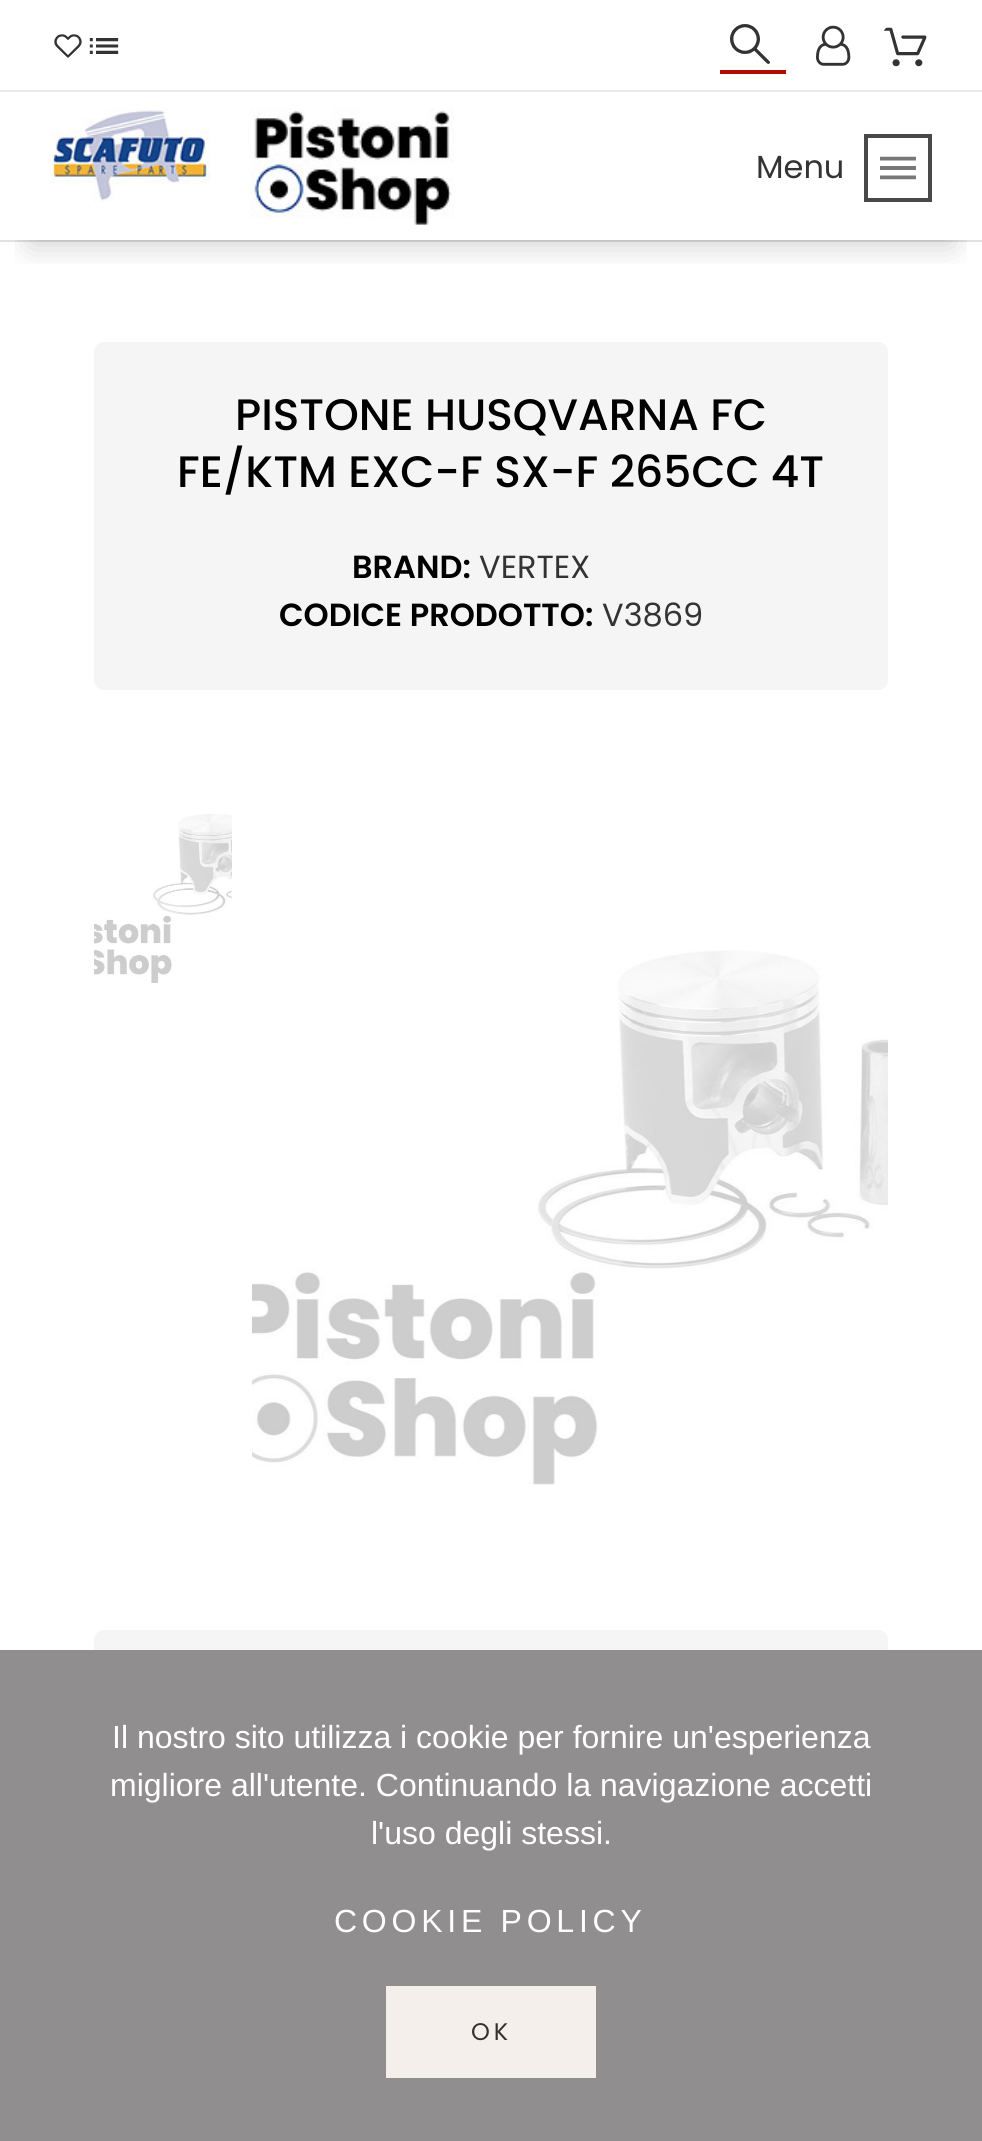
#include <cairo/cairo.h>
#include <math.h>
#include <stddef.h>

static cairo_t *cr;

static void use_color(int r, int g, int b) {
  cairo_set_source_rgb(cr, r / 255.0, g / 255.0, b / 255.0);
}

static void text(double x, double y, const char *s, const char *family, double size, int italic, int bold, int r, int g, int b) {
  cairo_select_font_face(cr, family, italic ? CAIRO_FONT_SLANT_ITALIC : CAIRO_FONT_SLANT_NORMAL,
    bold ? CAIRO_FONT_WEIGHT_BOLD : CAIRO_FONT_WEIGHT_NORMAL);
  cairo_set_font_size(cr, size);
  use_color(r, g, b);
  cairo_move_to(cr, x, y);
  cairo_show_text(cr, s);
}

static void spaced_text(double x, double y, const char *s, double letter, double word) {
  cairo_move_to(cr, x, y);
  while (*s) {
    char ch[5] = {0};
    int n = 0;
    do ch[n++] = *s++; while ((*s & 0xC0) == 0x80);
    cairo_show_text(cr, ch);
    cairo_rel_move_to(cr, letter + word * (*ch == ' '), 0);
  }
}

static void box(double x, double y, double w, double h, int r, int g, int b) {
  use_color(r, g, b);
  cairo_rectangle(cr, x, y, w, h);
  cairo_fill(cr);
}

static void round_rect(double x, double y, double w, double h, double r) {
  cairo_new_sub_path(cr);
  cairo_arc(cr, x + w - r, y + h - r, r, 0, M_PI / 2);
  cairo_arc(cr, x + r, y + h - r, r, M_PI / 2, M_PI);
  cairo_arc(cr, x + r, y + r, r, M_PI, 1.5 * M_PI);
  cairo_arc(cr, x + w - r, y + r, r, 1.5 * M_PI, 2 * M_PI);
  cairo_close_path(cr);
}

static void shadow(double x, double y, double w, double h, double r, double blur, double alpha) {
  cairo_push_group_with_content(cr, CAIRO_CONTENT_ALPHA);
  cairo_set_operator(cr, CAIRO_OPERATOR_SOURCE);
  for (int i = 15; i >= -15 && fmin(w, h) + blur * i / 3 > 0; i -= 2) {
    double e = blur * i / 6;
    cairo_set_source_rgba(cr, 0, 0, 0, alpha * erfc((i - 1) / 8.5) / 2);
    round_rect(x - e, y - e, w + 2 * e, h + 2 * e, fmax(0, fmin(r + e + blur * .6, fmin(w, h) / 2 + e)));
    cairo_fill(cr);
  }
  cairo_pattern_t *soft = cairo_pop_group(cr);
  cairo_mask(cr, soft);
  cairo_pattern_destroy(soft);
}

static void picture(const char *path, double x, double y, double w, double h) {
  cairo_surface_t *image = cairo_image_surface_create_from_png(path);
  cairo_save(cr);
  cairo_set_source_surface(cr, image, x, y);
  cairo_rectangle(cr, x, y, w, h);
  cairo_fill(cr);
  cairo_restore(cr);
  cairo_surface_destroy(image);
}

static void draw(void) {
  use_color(255, 255, 255);
  cairo_paint(cr);
  box(0, 240, 982, 2, 225, 225, 225);
  box(0, 90, 982, 2, 234, 234, 234);
  picture("img_01.png", 54, 34, 28, 24);
  picture("img_02.png", 89, 38, 30, 16);
  picture("img_03.png", 730, 24, 40, 40);
  box(720, 70, 66, 4, 181, 10, 0);
  picture("img_04.png", 816, 25, 35, 41);
  picture("img_05.png", 884, 27, 43, 40);
  cairo_save(cr);
  cairo_rectangle(cr, 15, 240, 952, 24);
  cairo_clip(cr);
  use_color(0, 0, 0);
  shadow(30, 156, 922, 88, 0, 16, 0.2);
  cairo_restore(cr);
  picture("img_06.png", 50, 108, 160, 94);
  picture("img_07.png", 250, 108, 204, 117);
  cairo_rectangle(cr, 866, 136, 64, 64);
  use_color(73, 73, 73);
  cairo_set_line_width(cr, 4);
  cairo_stroke(cr);
  picture("img_08.png", 880, 156, 36, 24);
  use_color(245, 245, 245);
  round_rect(94, 342, 794, 348, 10);
  cairo_fill(cr);
  picture("img_09.png", 94, 814, 138, 169);
  picture("img_10.png", 252, 950, 636, 535);
  round_rect(94, 1630, 794, 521, 10);
  cairo_fill(cr);
  box(0, 1650, 982, 491, 144, 142, 143);
  box(386, 1986, 210, 92, 244, 239, 235);
  text(756, 178, "Menu", "Poppins", 32, 0, 0, 51, 51, 51);
  text(235, 430, "PISTONE HUSQVARNA FC", "Poppins Medium", 44, 0, 0, 0, 0, 0);
  text(177, 487, "FE/KTM EXC-F SX-F 265CC 4T", "Poppins Medium", 44, 0, 0, 0, 0, 0);
  text(352, 578, "BRAND:", "Poppins SemiBold", 32, 0, 0, 0, 0, 0);
  text(479, 578, "VERTEX", "Poppins", 32, 0, 0, 51, 51, 51);
  text(279, 626, "CODICE PRODOTTO:", "Poppins SemiBold", 32, 0, 0, 0, 0, 0);
  text(602, 626, "V3869", "Poppins", 32, 0, 0, 51, 51, 51);
  text(112, 1748, "Il nostro sito utilizza i cookie per fornire un'esperienza", "Liberation Sans", 32, 0, 0, 255, 255, 255);
  text(110, 1796, "migliore all'utente. Continuando la navigazione accetti", "Liberation Sans", 32, 0, 0, 255, 255, 255);
  text(371, 1844, "l'uso degli stessi.", "Liberation Sans", 32, 0, 0, 255, 255, 255);
  spaced_text(334, 1932, "COOKIE POLICY", 4.75, 0);
  cairo_select_font_face(cr, "Poppins", CAIRO_FONT_SLANT_NORMAL, CAIRO_FONT_WEIGHT_NORMAL);
  cairo_set_font_size(cr, 24);
  use_color(51, 51, 51);
  spaced_text(471, 2040, "OK", 4, 0);
}

int main(void) {
  cairo_surface_t *surface = cairo_image_surface_create(CAIRO_FORMAT_RGB24, 982, 2141);
  cr = cairo_create(surface);
  cairo_font_options_t *options = cairo_font_options_create();
  cairo_font_options_set_hint_metrics(options, CAIRO_HINT_METRICS_OFF);
  cairo_font_options_set_hint_style(options, CAIRO_HINT_STYLE_NONE);
  cairo_set_font_options(cr, options);
  cairo_set_miter_limit(cr, 4);
  draw();
  cairo_surface_write_to_png(surface, "out.png");
  cairo_font_options_destroy(options);
  cairo_destroy(cr);
  cairo_surface_destroy(surface);
  return 0;
}
